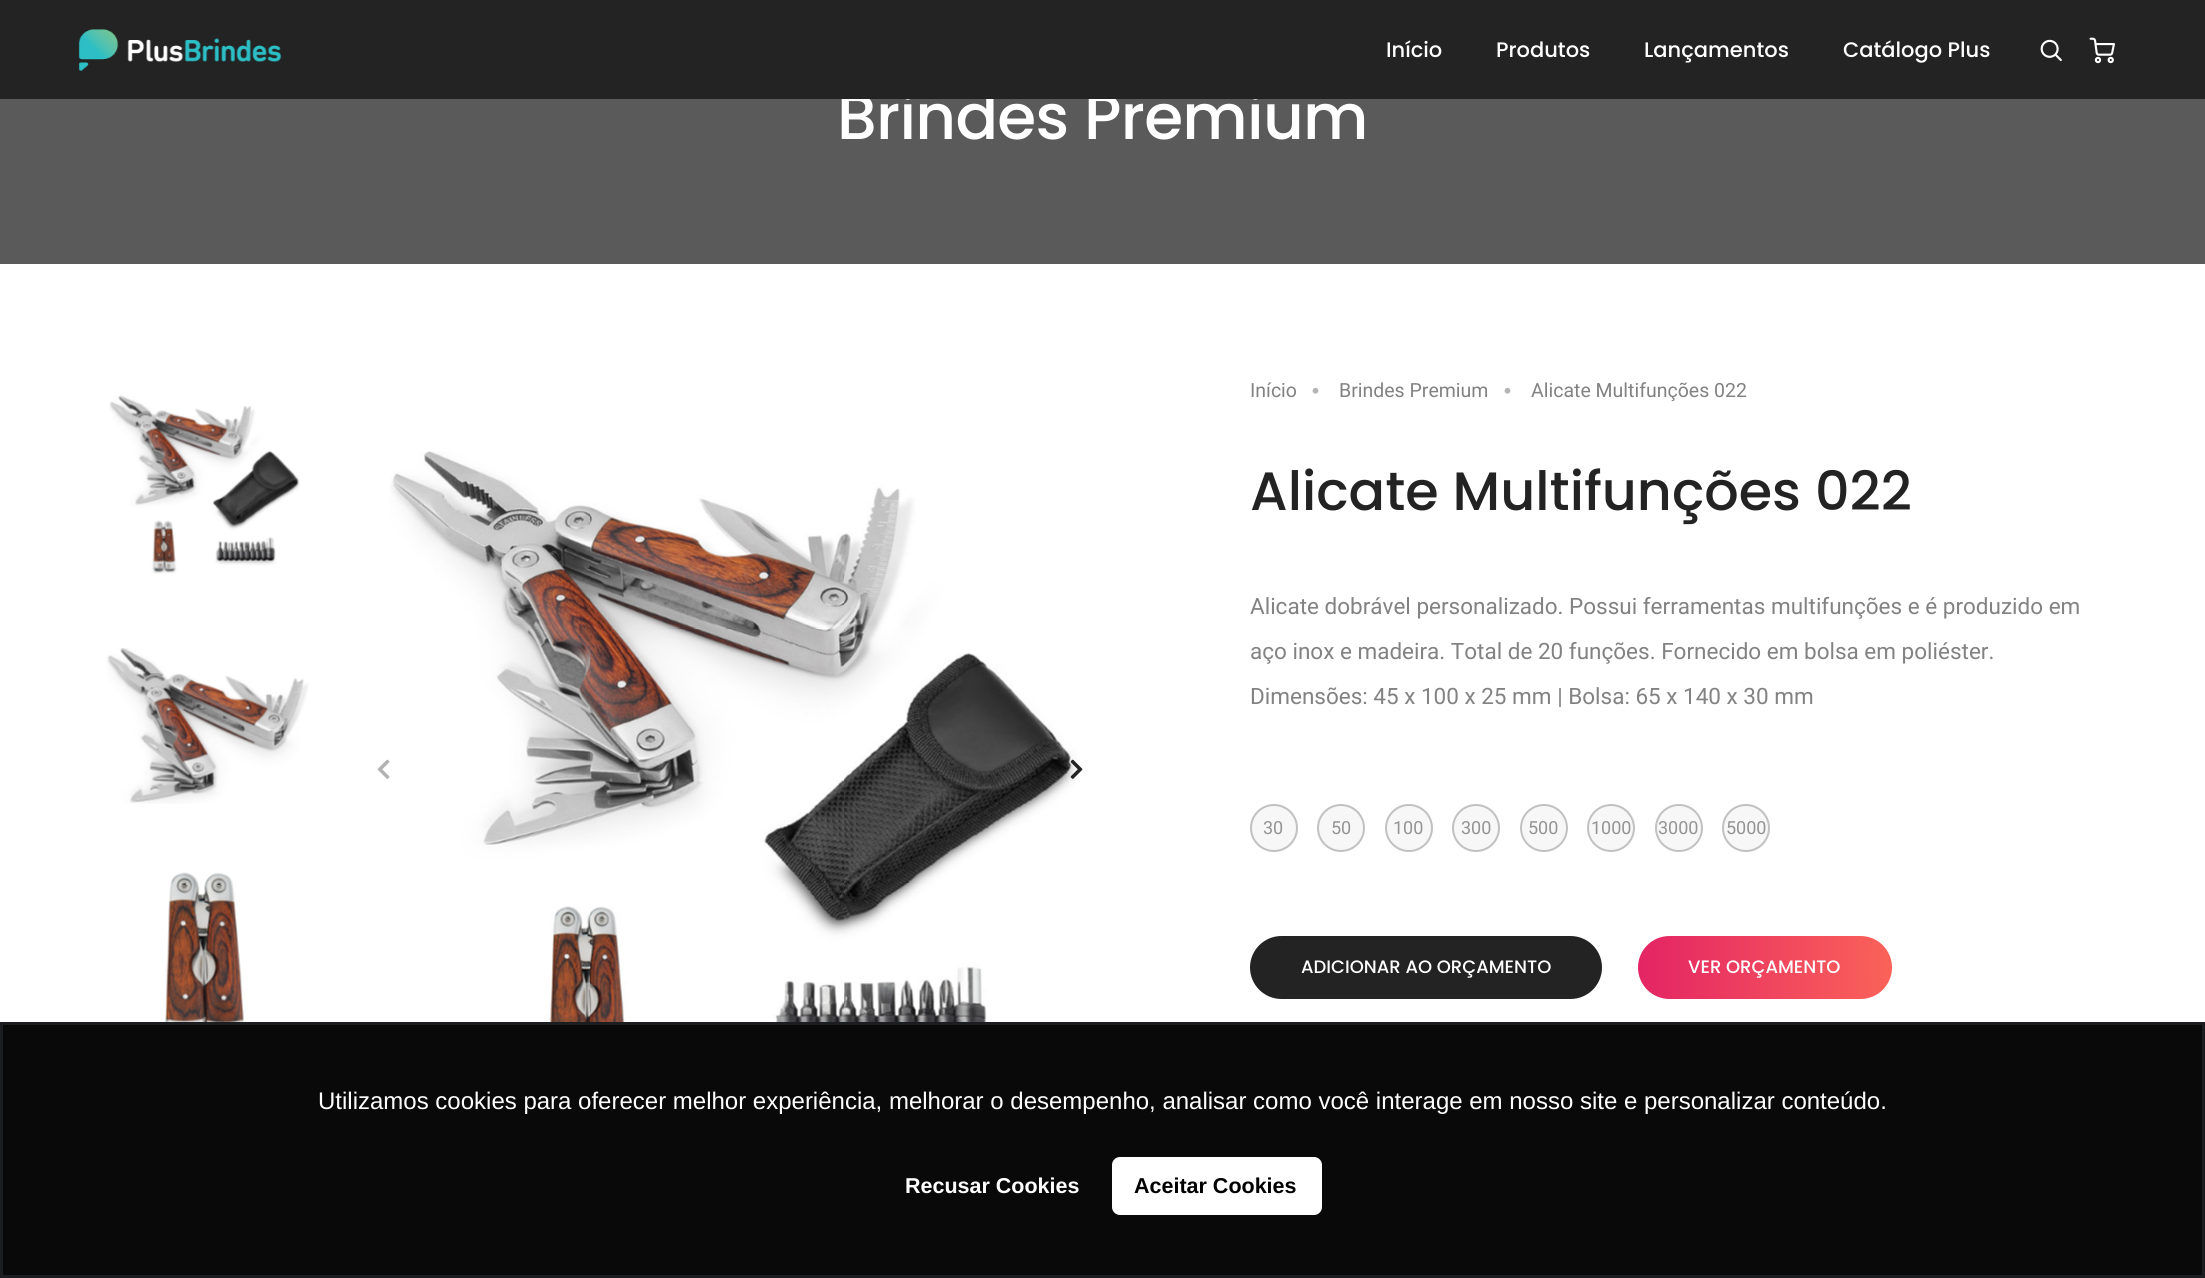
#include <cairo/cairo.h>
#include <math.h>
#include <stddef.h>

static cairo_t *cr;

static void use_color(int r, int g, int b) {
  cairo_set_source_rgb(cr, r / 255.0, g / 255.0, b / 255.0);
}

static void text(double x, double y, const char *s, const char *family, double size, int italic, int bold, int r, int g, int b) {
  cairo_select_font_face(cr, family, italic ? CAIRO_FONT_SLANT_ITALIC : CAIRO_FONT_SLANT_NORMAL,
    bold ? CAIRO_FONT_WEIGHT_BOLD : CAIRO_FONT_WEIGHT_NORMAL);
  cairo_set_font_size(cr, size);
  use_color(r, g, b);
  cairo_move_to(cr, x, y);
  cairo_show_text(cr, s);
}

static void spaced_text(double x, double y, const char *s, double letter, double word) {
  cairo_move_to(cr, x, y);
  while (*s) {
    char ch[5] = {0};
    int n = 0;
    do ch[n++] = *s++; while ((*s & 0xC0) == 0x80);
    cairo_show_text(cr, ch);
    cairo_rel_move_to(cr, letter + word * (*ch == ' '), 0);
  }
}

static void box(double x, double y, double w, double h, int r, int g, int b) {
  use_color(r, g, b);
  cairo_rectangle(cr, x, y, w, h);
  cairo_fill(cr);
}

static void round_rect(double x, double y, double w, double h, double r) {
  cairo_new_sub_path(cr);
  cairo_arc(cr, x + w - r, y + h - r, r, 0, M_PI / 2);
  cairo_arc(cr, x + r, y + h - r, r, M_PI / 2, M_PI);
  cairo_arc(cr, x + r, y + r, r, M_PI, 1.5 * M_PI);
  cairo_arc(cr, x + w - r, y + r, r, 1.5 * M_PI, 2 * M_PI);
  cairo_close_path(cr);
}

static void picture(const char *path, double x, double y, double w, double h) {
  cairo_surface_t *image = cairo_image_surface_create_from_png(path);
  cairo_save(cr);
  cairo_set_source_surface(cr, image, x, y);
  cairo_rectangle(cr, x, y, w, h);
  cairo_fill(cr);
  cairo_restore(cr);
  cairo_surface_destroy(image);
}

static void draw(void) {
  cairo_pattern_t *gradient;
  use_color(255, 255, 255);
  cairo_paint(cr);
  box(0, 99, 2205, 165, 90, 90, 90);
  picture("img_04.png", 109, 395, 191, 179);
  picture("img_05.png", 106, 648, 203, 156);
  picture("img_06.png", 160, 872, 88, 150);
  picture("img_07.png", 377, 759, 13, 20);
  picture("img_08.png", 390, 451, 688, 571);
  picture("img_09.png", 1070, 759, 13, 20);
  picture("img_10.png", 1312, 387, 7, 7);
  picture("img_10.png", 1504, 387, 7, 7);
  use_color(247, 247, 247);
  cairo_arc(cr, 1274, 828, 24, 0, 2 * M_PI);
  cairo_fill(cr);
  cairo_arc(cr, 1274, 828, 23, 0, 2 * M_PI);
  cairo_set_source_rgba(cr, 0.137, 0.137, 0.137, 0.25);
  cairo_stroke(cr);
  use_color(247, 247, 247);
  cairo_arc(cr, 1341, 828, 24, 0, 2 * M_PI);
  cairo_fill(cr);
  cairo_arc(cr, 1341, 828, 23, 0, 2 * M_PI);
  cairo_set_source_rgba(cr, 0.137, 0.137, 0.137, 0.25);
  cairo_stroke(cr);
  use_color(247, 247, 247);
  cairo_arc(cr, 1409, 828, 24, 0, 2 * M_PI);
  cairo_fill(cr);
  cairo_arc(cr, 1409, 828, 23, 0, 2 * M_PI);
  cairo_set_source_rgba(cr, 0.137, 0.137, 0.137, 0.25);
  cairo_stroke(cr);
  use_color(247, 247, 247);
  cairo_arc(cr, 1476, 828, 24, 0, 2 * M_PI);
  cairo_fill(cr);
  cairo_arc(cr, 1476, 828, 23, 0, 2 * M_PI);
  cairo_set_source_rgba(cr, 0.137, 0.137, 0.137, 0.25);
  cairo_stroke(cr);
  use_color(247, 247, 247);
  cairo_arc(cr, 1544, 828, 24, 0, 2 * M_PI);
  cairo_fill(cr);
  cairo_arc(cr, 1544, 828, 23, 0, 2 * M_PI);
  cairo_set_source_rgba(cr, 0.137, 0.137, 0.137, 0.25);
  cairo_stroke(cr);
  use_color(247, 247, 247);
  cairo_arc(cr, 1611, 828, 24, 0, 2 * M_PI);
  cairo_fill(cr);
  cairo_arc(cr, 1611, 828, 23, 0, 2 * M_PI);
  cairo_set_source_rgba(cr, 0.137, 0.137, 0.137, 0.25);
  cairo_stroke(cr);
  use_color(247, 247, 247);
  cairo_arc(cr, 1679, 828, 24, 0, 2 * M_PI);
  cairo_fill(cr);
  cairo_arc(cr, 1679, 828, 23, 0, 2 * M_PI);
  cairo_set_source_rgba(cr, 0.137, 0.137, 0.137, 0.25);
  cairo_stroke(cr);
  use_color(247, 247, 247);
  cairo_arc(cr, 1746, 828, 24, 0, 2 * M_PI);
  cairo_fill(cr);
  cairo_arc(cr, 1746, 828, 23, 0, 2 * M_PI);
  cairo_set_source_rgba(cr, 0.137, 0.137, 0.137, 0.25);
  cairo_stroke(cr);
  use_color(35, 35, 35);
  round_rect(1251.5, 937.5, 349, 60, 30);
  cairo_fill_preserve(cr);
  cairo_set_line_width(cr, 3);
  cairo_stroke(cr);
  cairo_save(cr);
  round_rect(1638, 936, 254, 63, 31.5);
  cairo_clip(cr);
  gradient = cairo_pattern_create_linear(1146, 968, 1641, 968);
  cairo_pattern_add_color_stop_rgba(gradient, 0, 0.894, 0.145, 0.392, 1);
  cairo_pattern_add_color_stop_rgba(gradient, 0.5, 0.98, 0.384, 0.349, 1);
  cairo_pattern_add_color_stop_rgba(gradient, 1, 0.894, 0.145, 0.392, 1);
  cairo_set_source(cr, gradient);
  cairo_pattern_destroy(gradient);
  cairo_rectangle(cr, 1638, 954, 3, 27);
  cairo_fill(cr);
  gradient = cairo_pattern_create_linear(1641, 968, 2136, 968);
  cairo_pattern_add_color_stop_rgba(gradient, 0, 0.894, 0.145, 0.392, 1);
  cairo_pattern_add_color_stop_rgba(gradient, 0.5, 0.98, 0.384, 0.349, 1);
  cairo_pattern_add_color_stop_rgba(gradient, 1, 0.894, 0.145, 0.392, 1);
  cairo_set_source(cr, gradient);
  cairo_pattern_destroy(gradient);
  cairo_new_path(cr);
  cairo_move_to(cr, 1641, 936);
  cairo_line_to(cr, 1860.5, 936);
  cairo_curve_to(cr, 1878, 936, 1892, 950, 1892, 967.5);
  cairo_curve_to(cr, 1892, 985, 1878, 999, 1860.5, 999);
  cairo_line_to(cr, 1641, 999);
  cairo_close_path(cr);
  cairo_fill(cr);
  cairo_restore(cr);
  use_color(9, 9, 9);
  cairo_rectangle(cr, 1.5, 1023.5, 2202, 253);
  cairo_fill_preserve(cr);
  use_color(27, 29, 32);
  cairo_stroke(cr);
  use_color(255, 255, 255);
  round_rect(1112, 1157, 210, 58, 8);
  cairo_fill(cr);
  cairo_select_font_face(cr, "Poppins Medium", CAIRO_FONT_SLANT_NORMAL, CAIRO_FONT_WEIGHT_NORMAL);
  cairo_set_font_size(cr, 63);
  spaced_text(837, 139, "Brindes Premium", -0.75, 0);
  box(0, 0, 2205, 99, 35, 35, 35);
  picture("img_03.png", 2089, 37, 26, 27);
  picture("img_02.png", 2040, 39, 22, 23);
  text(1843, 57, "Catálogo Plus", "Poppins Medium", 21, 0, 0, 255, 255, 255);
  text(1644, 57, "Lançamentos", "Poppins Medium", 21, 0, 0, 255, 255, 255);
  text(1496, 57, "Produtos", "Poppins Medium", 21, 0, 0, 255, 255, 255);
  text(1386, 57, "Início", "Poppins Medium", 21, 0, 0, 255, 255, 255);
  picture("img_01.png", 78, 29, 204, 43);
  text(1250, 397, "Início", "Roboto", 19.5, 0, 0, 130, 130, 130);
  text(1339, 397, "Brindes Premium", "Roboto", 19.5, 0, 0, 130, 130, 130);
  text(1531, 397, "Alicate Multifunções 022", "Roboto", 19.5, 0, 0, 130, 130, 130);
  text(1250, 510, "Alicate Multifunções 022", "Poppins Medium", 54, 0, 0, 35, 35, 35);
  text(1250, 614, "Alicate dobrável personalizado. Possui ferramentas multifunções e é produzido em", "Roboto", 22.5, 0, 0, 130, 130, 130);
  text(1250, 659, "aço inox e madeira. Total de 20 funções. Fornecido em bolsa em poliéster.", "Roboto", 22.5, 0, 0, 130, 130, 130);
  text(1250, 704, "Dimensões: 45 x 100 x 25 mm | Bolsa: 65 x 140 x 30 mm", "Roboto", 22.5, 0, 0, 130, 130, 130);
  text(1263, 834, "30", "Roboto", 18, 0, 0, 147, 147, 147);
  text(1331, 834, "50", "Roboto", 18, 0, 0, 147, 147, 147);
  text(1393, 834, "100", "Roboto", 18, 0, 0, 147, 147, 147);
  text(1461, 834, "300", "Roboto", 18, 0, 0, 147, 147, 147);
  text(1528, 834, "500", "Roboto", 18, 0, 0, 147, 147, 147);
  text(1591, 834, "1000", "Roboto", 18, 0, 0, 147, 147, 147);
  text(1658, 834, "3000", "Roboto", 18, 0, 0, 147, 147, 147);
  text(1726, 834, "5000", "Roboto", 18, 0, 0, 147, 147, 147);
  text(1301, 973, "ADICIONAR AO ORÇAMENTO", "Poppins Medium", 18, 0, 0, 255, 255, 255);
  text(1688, 973, "VER ORÇAMENTO", "Poppins Medium", 18, 0, 0, 255, 255, 255);
  text(318, 1109, "Utilizamos cookies para oferecer melhor experiência, melhorar o desempenho, analisar como você interage em nosso site e personalizar conteúdo.", "Liberation Sans", 24, 0, 0, 255, 255, 255);
  text(905, 1193, "Recusar Cookies", "Liberation Sans", 21.5, 0, 1, 255, 255, 255);
  text(1134, 1193, "Aceitar Cookies", "Liberation Sans", 21.5, 0, 1, 0, 0, 0);
}

int main(void) {
  cairo_surface_t *surface = cairo_image_surface_create(CAIRO_FORMAT_RGB24, 2205, 1278);
  cr = cairo_create(surface);
  cairo_font_options_t *options = cairo_font_options_create();
  cairo_font_options_set_hint_metrics(options, CAIRO_HINT_METRICS_OFF);
  cairo_font_options_set_hint_style(options, CAIRO_HINT_STYLE_NONE);
  cairo_set_font_options(cr, options);
  cairo_set_miter_limit(cr, 4);
  draw();
  cairo_surface_write_to_png(surface, "out.png");
  cairo_font_options_destroy(options);
  cairo_destroy(cr);
  cairo_surface_destroy(surface);
  return 0;
}
